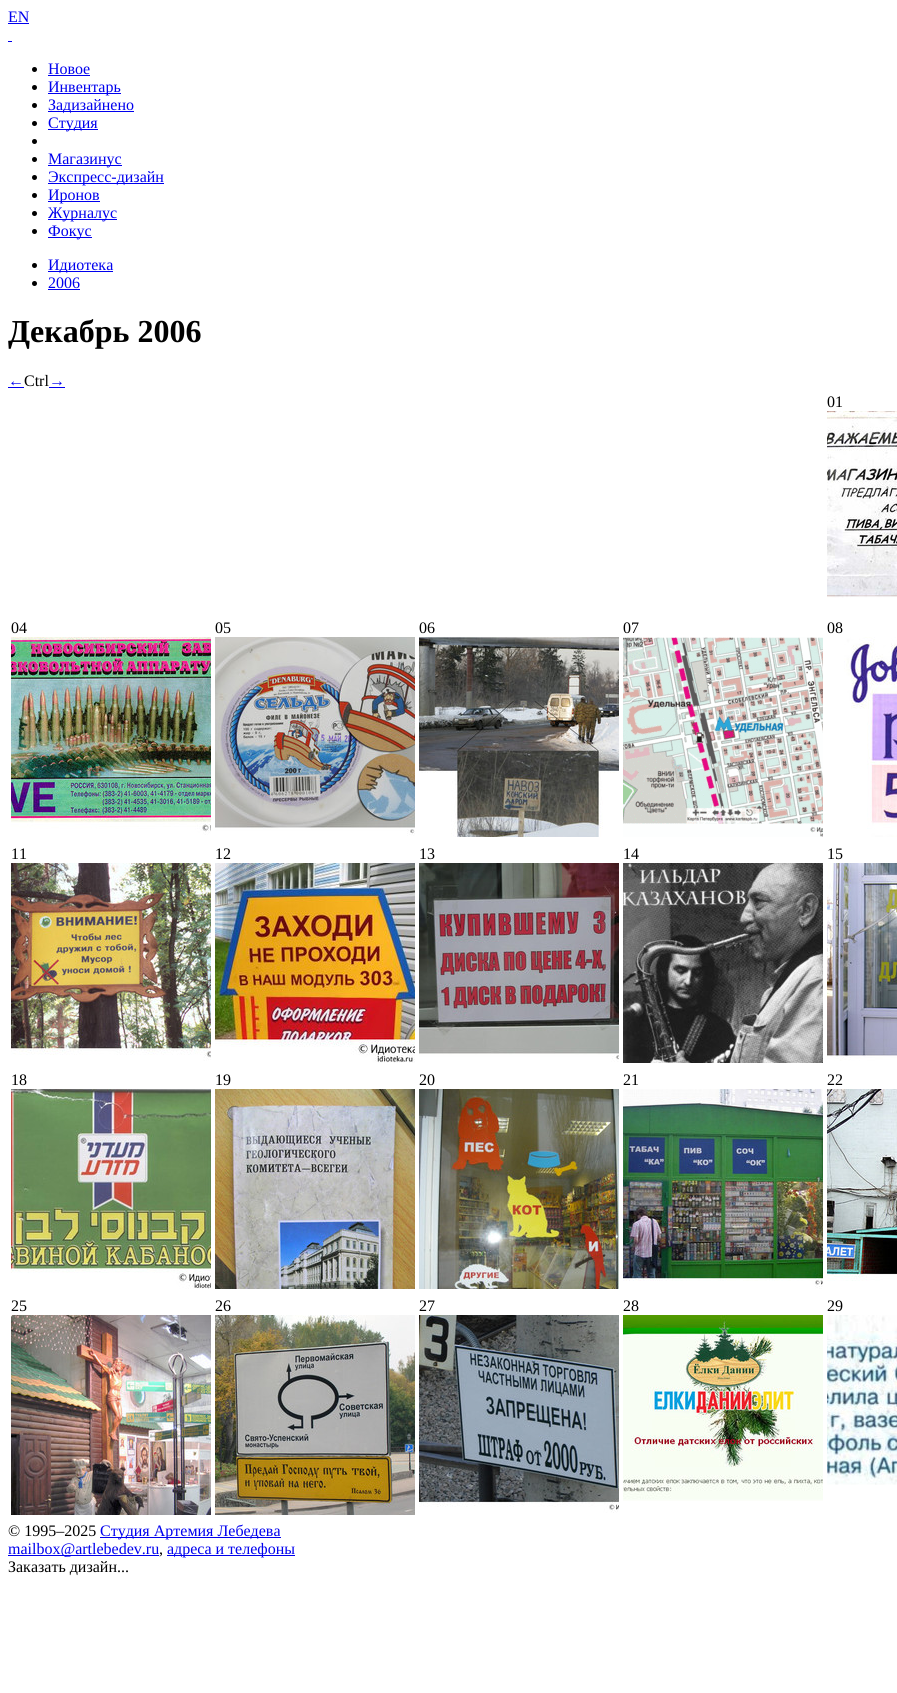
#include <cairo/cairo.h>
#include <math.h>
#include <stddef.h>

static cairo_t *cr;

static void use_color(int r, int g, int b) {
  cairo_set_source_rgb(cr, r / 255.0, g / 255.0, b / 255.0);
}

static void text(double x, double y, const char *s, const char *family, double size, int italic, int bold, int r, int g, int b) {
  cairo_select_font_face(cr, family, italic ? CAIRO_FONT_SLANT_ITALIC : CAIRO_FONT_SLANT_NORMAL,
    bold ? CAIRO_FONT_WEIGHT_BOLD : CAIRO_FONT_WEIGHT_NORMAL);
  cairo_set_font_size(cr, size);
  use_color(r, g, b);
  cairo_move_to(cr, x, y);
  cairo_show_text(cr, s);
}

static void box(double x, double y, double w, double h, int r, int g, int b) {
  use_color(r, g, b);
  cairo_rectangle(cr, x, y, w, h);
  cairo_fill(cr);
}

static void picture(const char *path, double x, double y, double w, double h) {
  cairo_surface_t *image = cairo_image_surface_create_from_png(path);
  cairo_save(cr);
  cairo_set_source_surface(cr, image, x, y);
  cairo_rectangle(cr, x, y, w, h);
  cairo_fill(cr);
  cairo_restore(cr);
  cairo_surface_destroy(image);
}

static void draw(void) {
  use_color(255, 255, 255);
  cairo_paint(cr);
  box(8, 23, 21, 1, 0, 0, 238);
  box(8, 41, 4, 1, 0, 0, 238);
  use_color(0, 0, 0);
  cairo_arc(cr, 34.5, 69.5, 2.5, 0, 2 * M_PI);
  cairo_fill(cr);
  box(48, 75, 42, 1, 0, 0, 238);
  use_color(0, 0, 0);
  cairo_arc(cr, 34.5, 87.5, 2.5, 0, 2 * M_PI);
  cairo_fill(cr);
  box(48, 93, 73, 1, 0, 0, 238);
  use_color(0, 0, 0);
  cairo_arc(cr, 34.5, 105.5, 2.5, 0, 2 * M_PI);
  cairo_fill(cr);
  box(48, 111, 86, 1, 0, 0, 238);
  use_color(0, 0, 0);
  cairo_arc(cr, 34.5, 123.5, 2.5, 0, 2 * M_PI);
  cairo_fill(cr);
  box(48, 129, 50, 1, 0, 0, 238);
  use_color(0, 0, 0);
  cairo_arc(cr, 34.5, 141.5, 2.5, 0, 2 * M_PI);
  cairo_fill(cr);
  cairo_arc(cr, 34.5, 159.5, 2.5, 0, 2 * M_PI);
  cairo_fill(cr);
  box(48, 165, 74, 1, 0, 0, 238);
  use_color(0, 0, 0);
  cairo_arc(cr, 34.5, 177.5, 2.5, 0, 2 * M_PI);
  cairo_fill(cr);
  box(48, 183, 116, 1, 0, 0, 238);
  use_color(0, 0, 0);
  cairo_arc(cr, 34.5, 195.5, 2.5, 0, 2 * M_PI);
  cairo_fill(cr);
  box(48, 201, 52, 1, 0, 0, 238);
  use_color(0, 0, 0);
  cairo_arc(cr, 34.5, 213.5, 2.5, 0, 2 * M_PI);
  cairo_fill(cr);
  box(48, 219, 69, 1, 0, 0, 238);
  use_color(0, 0, 0);
  cairo_arc(cr, 34.5, 231.5, 2.5, 0, 2 * M_PI);
  cairo_fill(cr);
  box(48, 237, 44, 1, 0, 0, 238);
  use_color(0, 0, 0);
  cairo_arc(cr, 34.5, 265.5, 2.5, 0, 2 * M_PI);
  cairo_fill(cr);
  box(48, 271, 65, 1, 0, 0, 238);
  use_color(0, 0, 0);
  cairo_arc(cr, 34.5, 283.5, 2.5, 0, 2 * M_PI);
  cairo_fill(cr);
  box(48, 289, 32, 1, 0, 0, 238);
  box(8, 387, 16, 1, 0, 0, 238);
  box(49, 387, 16, 1, 0, 0, 238);
  picture("img_01.png", 827, 411, 70, 187);
  picture("img_02.png", 11, 637, 200, 198);
  picture("img_03.png", 215, 637, 200, 199);
  picture("img_04.png", 419, 637, 200, 200);
  picture("img_05.png", 623, 637, 200, 200);
  picture("img_06.png", 844, 637, 53, 200);
  picture("img_07.png", 11, 863, 200, 198);
  picture("img_08.png", 215, 863, 200, 200);
  picture("img_09.png", 419, 863, 200, 199);
  picture("img_10.png", 623, 863, 200, 200);
  picture("img_11.png", 827, 863, 70, 198);
  picture("img_12.png", 11, 1089, 200, 200);
  picture("img_13.png", 215, 1089, 200, 200);
  picture("img_14.png", 419, 1089, 200, 200);
  picture("img_15.png", 623, 1089, 200, 200);
  picture("img_16.png", 827, 1089, 70, 192);
  picture("img_17.png", 11, 1315, 200, 200);
  picture("img_18.png", 215, 1315, 200, 200);
  picture("img_19.png", 419, 1315, 200, 198);
  picture("img_20.png", 623, 1315, 200, 186);
  picture("img_21.png", 827, 1315, 70, 170);
  box(100, 1537, 181, 1, 0, 0, 238);
  box(8, 1555, 151, 1, 0, 0, 238);
  box(167, 1555, 128, 1, 0, 0, 238);
  text(8, 22, "EN", "Liberation Serif", 16, 0, 0, 0, 0, 238);
  text(48, 74, "Новое", "Liberation Serif", 16, 0, 0, 0, 0, 238);
  text(48, 92, "Инвентарь", "Liberation Serif", 16, 0, 0, 0, 0, 238);
  text(48, 110, "Задизайнено", "Liberation Serif", 16, 0, 0, 0, 0, 238);
  text(48, 128, "Студия", "Liberation Serif", 16, 0, 0, 0, 0, 238);
  text(48, 164, "Магазинус", "Liberation Serif", 16, 0, 0, 0, 0, 238);
  text(48, 182, "Экспресс-дизайн", "Liberation Serif", 16, 0, 0, 0, 0, 238);
  text(48, 200, "Иронов", "Liberation Serif", 16, 0, 0, 0, 0, 238);
  text(48, 218, "Журналус", "Liberation Serif", 16, 0, 0, 0, 0, 238);
  text(48, 236, "Фокус", "Liberation Serif", 16, 0, 0, 0, 0, 238);
  text(48, 270, "Идиотека", "Liberation Serif", 16, 0, 0, 0, 0, 238);
  text(48, 288, "2006", "Liberation Serif", 16, 0, 0, 0, 0, 238);
  text(8, 342, "Декабрь 2006", "Liberation Serif", 32, 0, 1, 0, 0, 0);
  text(8, 386, "←", "Liberation Serif", 16, 0, 0, 0, 0, 238);
  text(24, 386, "Ctrl", "Liberation Serif", 16, 0, 0, 0, 0, 0);
  text(49, 386, "→", "Liberation Serif", 16, 0, 0, 0, 0, 238);
  text(827, 407, "01", "Liberation Serif", 16, 0, 0, 0, 0, 0);
  text(11, 633, "04", "Liberation Serif", 16, 0, 0, 0, 0, 0);
  text(215, 633, "05", "Liberation Serif", 16, 0, 0, 0, 0, 0);
  text(419, 633, "06", "Liberation Serif", 16, 0, 0, 0, 0, 0);
  text(623, 633, "07", "Liberation Serif", 16, 0, 0, 0, 0, 0);
  text(827, 633, "08", "Liberation Serif", 16, 0, 0, 0, 0, 0);
  text(11, 859, "11", "Liberation Serif", 16, 0, 0, 0, 0, 0);
  text(215, 859, "12", "Liberation Serif", 16, 0, 0, 0, 0, 0);
  text(419, 859, "13", "Liberation Serif", 16, 0, 0, 0, 0, 0);
  text(623, 859, "14", "Liberation Serif", 16, 0, 0, 0, 0, 0);
  text(827, 859, "15", "Liberation Serif", 16, 0, 0, 0, 0, 0);
  text(11, 1085, "18", "Liberation Serif", 16, 0, 0, 0, 0, 0);
  text(215, 1085, "19", "Liberation Serif", 16, 0, 0, 0, 0, 0);
  text(419, 1085, "20", "Liberation Serif", 16, 0, 0, 0, 0, 0);
  text(623, 1085, "21", "Liberation Serif", 16, 0, 0, 0, 0, 0);
  text(827, 1085, "22", "Liberation Serif", 16, 0, 0, 0, 0, 0);
  text(11, 1311, "25", "Liberation Serif", 16, 0, 0, 0, 0, 0);
  text(215, 1311, "26", "Liberation Serif", 16, 0, 0, 0, 0, 0);
  text(419, 1311, "27", "Liberation Serif", 16, 0, 0, 0, 0, 0);
  text(623, 1311, "28", "Liberation Serif", 16, 0, 0, 0, 0, 0);
  text(827, 1311, "29", "Liberation Serif", 16, 0, 0, 0, 0, 0);
  text(8, 1536, "© 1995–2025", "Liberation Serif", 16, 0, 0, 0, 0, 0);
  text(100, 1536, "Студия Артемия Лебедева", "Liberation Serif", 16, 0, 0, 0, 0, 238);
  text(8, 1554, "mailbox@artlebedev.ru", "Liberation Serif", 16, 0, 0, 0, 0, 238);
  text(159, 1554, ",", "Liberation Serif", 16, 0, 0, 0, 0, 0);
  text(167, 1554, "адреса и телефоны", "Liberation Serif", 16, 0, 0, 0, 0, 238);
  text(8, 1572, "Заказать дизайн...", "Liberation Serif", 16, 0, 0, 0, 0, 0);
}

int main(void) {
  cairo_surface_t *surface = cairo_image_surface_create(CAIRO_FORMAT_RGB24, 897, 1693);
  cr = cairo_create(surface);
  cairo_font_options_t *options = cairo_font_options_create();
  cairo_font_options_set_hint_metrics(options, CAIRO_HINT_METRICS_OFF);
  cairo_font_options_set_hint_style(options, CAIRO_HINT_STYLE_NONE);
  cairo_set_font_options(cr, options);
  cairo_set_miter_limit(cr, 4);
  draw();
  cairo_surface_write_to_png(surface, "out.png");
  cairo_font_options_destroy(options);
  cairo_destroy(cr);
  cairo_surface_destroy(surface);
  return 0;
}
